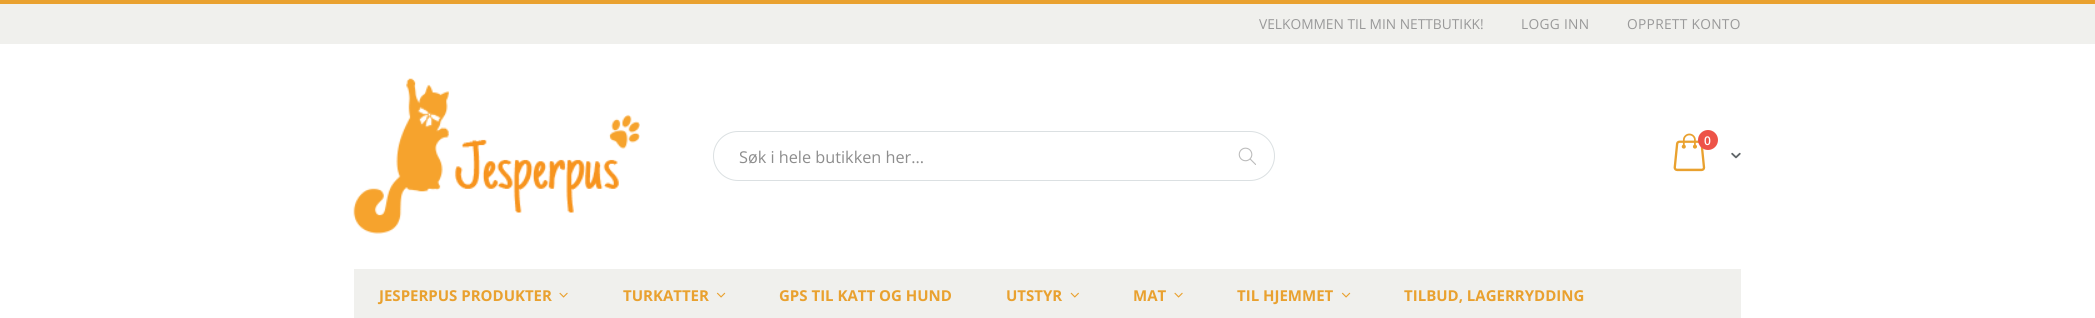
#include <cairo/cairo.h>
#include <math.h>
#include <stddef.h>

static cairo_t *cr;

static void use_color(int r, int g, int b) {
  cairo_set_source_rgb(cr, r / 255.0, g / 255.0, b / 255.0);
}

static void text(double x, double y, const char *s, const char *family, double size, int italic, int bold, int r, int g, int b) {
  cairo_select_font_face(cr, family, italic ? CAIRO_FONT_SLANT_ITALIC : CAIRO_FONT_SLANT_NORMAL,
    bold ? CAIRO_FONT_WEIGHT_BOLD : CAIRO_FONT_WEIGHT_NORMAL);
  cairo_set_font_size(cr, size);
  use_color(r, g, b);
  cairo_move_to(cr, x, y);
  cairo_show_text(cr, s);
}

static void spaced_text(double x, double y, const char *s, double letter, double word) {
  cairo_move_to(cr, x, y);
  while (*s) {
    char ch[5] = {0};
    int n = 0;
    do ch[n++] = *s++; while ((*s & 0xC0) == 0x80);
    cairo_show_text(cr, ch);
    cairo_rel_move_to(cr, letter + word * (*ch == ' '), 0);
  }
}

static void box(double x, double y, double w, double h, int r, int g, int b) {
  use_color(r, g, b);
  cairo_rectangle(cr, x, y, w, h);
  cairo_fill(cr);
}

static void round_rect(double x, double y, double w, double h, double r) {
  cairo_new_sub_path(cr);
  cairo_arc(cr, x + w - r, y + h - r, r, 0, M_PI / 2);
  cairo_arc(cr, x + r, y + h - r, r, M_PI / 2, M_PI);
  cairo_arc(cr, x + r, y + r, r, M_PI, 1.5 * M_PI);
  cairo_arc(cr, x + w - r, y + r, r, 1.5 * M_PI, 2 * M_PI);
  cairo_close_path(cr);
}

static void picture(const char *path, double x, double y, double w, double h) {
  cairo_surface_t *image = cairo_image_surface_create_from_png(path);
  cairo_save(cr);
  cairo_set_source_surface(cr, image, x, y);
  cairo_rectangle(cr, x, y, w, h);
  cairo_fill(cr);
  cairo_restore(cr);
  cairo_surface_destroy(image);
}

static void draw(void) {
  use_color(255, 255, 255);
  cairo_paint(cr);
  box(0, 0, 2095, 4, 233, 161, 47);
  box(0, 4, 2095, 40, 240, 240, 237);
  picture("img_01.png", 353, 78, 287, 156);
  picture("img_02.png", 1673, 133, 33, 39);
  use_color(237, 83, 72);
  cairo_arc(cr, 1708, 140, 10, 0, 2 * M_PI);
  cairo_fill(cr);
  picture("img_03.png", 1731, 152, 10, 7);
  round_rect(713.5, 131.5, 561, 49, 24.5);
  use_color(219, 224, 226);
  cairo_set_line_width(cr, 1);
  cairo_stroke(cr);
  picture("img_04.png", 1238, 147, 18, 18);
  box(354, 269, 1387, 49, 240, 240, 237);
  picture("img_05.png", 559, 292, 9, 6);
  picture("img_06.png", 716, 292, 10, 6);
  picture("img_07.png", 1070, 292, 9, 6);
  picture("img_05.png", 1174, 292, 9, 6);
  picture("img_06.png", 1341, 292, 10, 6);
  text(1259, 29, "VELKOMMEN TIL MIN NETTBUTIKK!", "Open Sans", 13.75, 0, 0, 153, 153, 153);
  spaced_text(1521, 29, "LOGG INN", 0.3, 0);
  spaced_text(1627, 29, "OPPRETT KONTO", 0.3, 0);
  text(1704, 145, "0", "Open Sans SemiBold", 12, 0, 0, 255, 255, 255);
  text(739, 163, "Søk i hele butikken her...", "Open Sans", 16.25, 0, 0, 141, 141, 141);
  text(379, 301, "JESPERPUS PRODUKTER", "Open Sans", 15, 0, 1, 233, 161, 47);
  text(623, 301, "TURKATTER", "Open Sans", 15, 0, 1, 233, 161, 47);
  text(779, 301, "GPS TIL KATT OG HUND", "Open Sans", 15, 0, 1, 233, 161, 47);
  text(1006, 301, "UTSTYR", "Open Sans", 15, 0, 1, 233, 161, 47);
  text(1133, 301, "MAT", "Open Sans", 15, 0, 1, 233, 161, 47);
  text(1237, 301, "TIL HJEMMET", "Open Sans", 15, 0, 1, 233, 161, 47);
  text(1404, 301, "TILBUD, LAGERRYDDING", "Open Sans", 15, 0, 1, 233, 161, 47);
}

int main(void) {
  cairo_surface_t *surface = cairo_image_surface_create(CAIRO_FORMAT_RGB24, 2095, 318);
  cr = cairo_create(surface);
  cairo_font_options_t *options = cairo_font_options_create();
  cairo_font_options_set_hint_metrics(options, CAIRO_HINT_METRICS_OFF);
  cairo_font_options_set_hint_style(options, CAIRO_HINT_STYLE_NONE);
  cairo_set_font_options(cr, options);
  cairo_set_miter_limit(cr, 4);
  draw();
  cairo_surface_write_to_png(surface, "out.png");
  cairo_font_options_destroy(options);
  cairo_destroy(cr);
  cairo_surface_destroy(surface);
  return 0;
}
